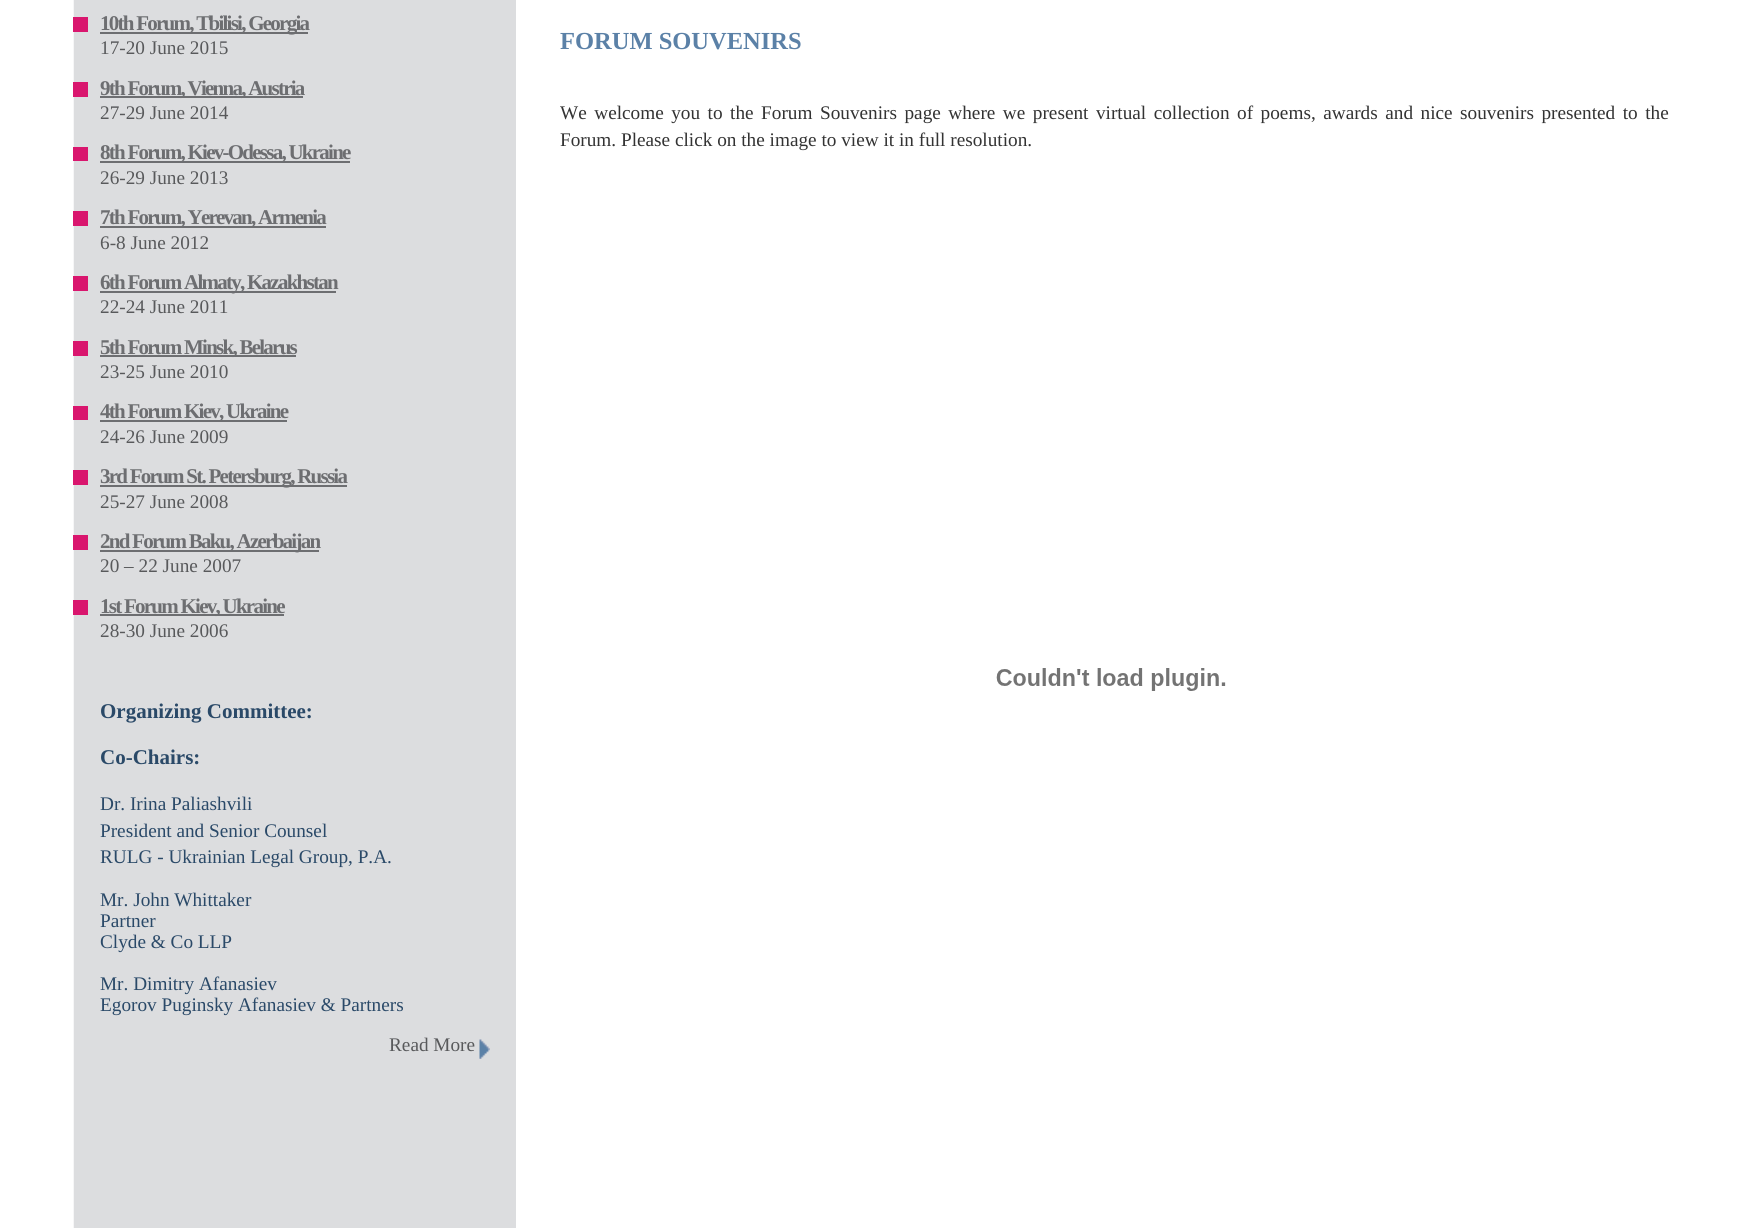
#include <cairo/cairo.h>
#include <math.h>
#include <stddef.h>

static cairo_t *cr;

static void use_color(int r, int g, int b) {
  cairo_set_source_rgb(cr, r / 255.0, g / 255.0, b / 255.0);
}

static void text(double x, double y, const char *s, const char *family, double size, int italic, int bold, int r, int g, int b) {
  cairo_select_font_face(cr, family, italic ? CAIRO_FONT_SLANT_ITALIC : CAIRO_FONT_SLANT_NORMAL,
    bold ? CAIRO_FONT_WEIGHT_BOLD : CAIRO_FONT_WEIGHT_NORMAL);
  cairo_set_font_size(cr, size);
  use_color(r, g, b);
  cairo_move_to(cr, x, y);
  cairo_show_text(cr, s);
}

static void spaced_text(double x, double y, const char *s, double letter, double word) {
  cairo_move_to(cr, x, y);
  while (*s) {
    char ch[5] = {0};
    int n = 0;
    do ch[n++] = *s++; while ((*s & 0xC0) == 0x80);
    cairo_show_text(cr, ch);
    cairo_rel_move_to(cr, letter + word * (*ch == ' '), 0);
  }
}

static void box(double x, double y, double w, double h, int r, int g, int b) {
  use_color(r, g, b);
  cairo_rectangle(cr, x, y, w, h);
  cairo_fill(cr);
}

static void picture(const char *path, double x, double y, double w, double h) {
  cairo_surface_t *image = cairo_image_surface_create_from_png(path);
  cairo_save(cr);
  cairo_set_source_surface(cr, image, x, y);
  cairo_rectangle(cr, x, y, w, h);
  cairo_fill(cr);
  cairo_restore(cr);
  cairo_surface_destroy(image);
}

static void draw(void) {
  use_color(255, 255, 255);
  cairo_paint(cr);
  picture("img_01.png", 73, 0, 1, 1228);
  box(74, 0, 442, 1228, 220, 221, 223);
  box(73, 17, 15, 15, 217, 22, 110);
  box(100, 32, 208, 2, 109, 110, 113);
  box(73, 82, 15, 15, 217, 22, 110);
  box(100, 96, 203, 2, 109, 110, 113);
  box(73, 147, 15, 14, 217, 22, 110);
  box(100, 161, 250, 2, 109, 110, 113);
  box(73, 211, 15, 15, 217, 22, 110);
  box(100, 226, 226, 2, 109, 110, 113);
  box(73, 276, 15, 15, 217, 22, 110);
  box(100, 291, 236, 2, 109, 110, 113);
  box(73, 341, 15, 15, 217, 22, 110);
  box(100, 355, 196, 2, 109, 110, 113);
  box(73, 406, 15, 14, 217, 22, 110);
  box(100, 420, 187, 2, 109, 110, 113);
  box(73, 470, 15, 15, 217, 22, 110);
  box(100, 485, 247, 2, 109, 110, 113);
  box(73, 535, 15, 15, 217, 22, 110);
  box(100, 550, 219, 2, 109, 110, 113);
  box(73, 600, 15, 15, 217, 22, 110);
  box(100, 614, 184, 2, 109, 110, 113);
  picture("img_02.png", 479, 1039, 11, 20);
  picture("img_03.png", 996, 668, 230, 23);
  cairo_select_font_face(cr, "Liberation Serif", CAIRO_FONT_SLANT_NORMAL, CAIRO_FONT_WEIGHT_BOLD);
  cairo_set_font_size(cr, 21);
  spaced_text(100, 30, "10th Forum, Tbilisi, Georgia", -1.75, 0);
  text(100, 54, "17-20 June 2015", "Liberation Serif", 19.25, 0, 0, 88, 89, 91);
  cairo_select_font_face(cr, "Liberation Serif", CAIRO_FONT_SLANT_NORMAL, CAIRO_FONT_WEIGHT_BOLD);
  cairo_set_font_size(cr, 21);
  use_color(109, 110, 113);
  spaced_text(100, 95, "9th Forum, Vienna, Austria", -1.75, 0);
  text(100, 119, "27-29 June 2014", "Liberation Serif", 19.25, 0, 0, 88, 89, 91);
  cairo_select_font_face(cr, "Liberation Serif", CAIRO_FONT_SLANT_NORMAL, CAIRO_FONT_WEIGHT_BOLD);
  cairo_set_font_size(cr, 21);
  use_color(109, 110, 113);
  spaced_text(100, 159, "8th Forum, Kiev-Odessa, Ukraine", -1.75, 0);
  text(100, 184, "26-29 June 2013", "Liberation Serif", 19.25, 0, 0, 88, 89, 91);
  cairo_select_font_face(cr, "Liberation Serif", CAIRO_FONT_SLANT_NORMAL, CAIRO_FONT_WEIGHT_BOLD);
  cairo_set_font_size(cr, 21);
  use_color(109, 110, 113);
  spaced_text(100, 224, "7th Forum, Yerevan, Armenia", -1.75, 0);
  text(100, 249, "6-8 June 2012", "Liberation Serif", 19.25, 0, 0, 88, 89, 91);
  cairo_select_font_face(cr, "Liberation Serif", CAIRO_FONT_SLANT_NORMAL, CAIRO_FONT_WEIGHT_BOLD);
  cairo_set_font_size(cr, 21);
  use_color(109, 110, 113);
  spaced_text(100, 289, "6th Forum Almaty, Kazakhstan", -1.75, 0);
  text(100, 313, "22-24 June 2011", "Liberation Serif", 19.25, 0, 0, 88, 89, 91);
  cairo_select_font_face(cr, "Liberation Serif", CAIRO_FONT_SLANT_NORMAL, CAIRO_FONT_WEIGHT_BOLD);
  cairo_set_font_size(cr, 21);
  use_color(109, 110, 113);
  spaced_text(100, 354, "5th Forum Minsk, Belarus", -1.75, 0);
  text(100, 378, "23-25 June 2010", "Liberation Serif", 19.25, 0, 0, 88, 89, 91);
  cairo_select_font_face(cr, "Liberation Serif", CAIRO_FONT_SLANT_NORMAL, CAIRO_FONT_WEIGHT_BOLD);
  cairo_set_font_size(cr, 21);
  use_color(109, 110, 113);
  spaced_text(100, 418, "4th Forum Kiev, Ukraine", -1.75, 0);
  text(100, 443, "24-26 June 2009", "Liberation Serif", 19.25, 0, 0, 88, 89, 91);
  cairo_select_font_face(cr, "Liberation Serif", CAIRO_FONT_SLANT_NORMAL, CAIRO_FONT_WEIGHT_BOLD);
  cairo_set_font_size(cr, 21);
  use_color(109, 110, 113);
  spaced_text(100, 483, "3rd Forum St. Petersburg, Russia", -1.75, 0);
  text(100, 508, "25-27 June 2008", "Liberation Serif", 19.25, 0, 0, 88, 89, 91);
  cairo_select_font_face(cr, "Liberation Serif", CAIRO_FONT_SLANT_NORMAL, CAIRO_FONT_WEIGHT_BOLD);
  cairo_set_font_size(cr, 21);
  use_color(109, 110, 113);
  spaced_text(100, 548, "2nd Forum Baku, Azerbaijan", -1.75, 0);
  text(100, 572, "20 – 22 June 2007", "Liberation Serif", 19.25, 0, 0, 88, 89, 91);
  cairo_select_font_face(cr, "Liberation Serif", CAIRO_FONT_SLANT_NORMAL, CAIRO_FONT_WEIGHT_BOLD);
  cairo_set_font_size(cr, 21);
  use_color(109, 110, 113);
  spaced_text(100, 613, "1st Forum Kiev, Ukraine", -1.75, 0);
  text(100, 637, "28-30 June 2006", "Liberation Serif", 19.25, 0, 0, 88, 89, 91);
  text(100, 718, "Organizing Committee:", "Liberation Serif", 21, 0, 1, 42, 73, 104);
  text(100, 764, "Co-Chairs:", "Liberation Serif", 21, 0, 1, 42, 73, 104);
  text(100, 810, "Dr. Irina Paliashvili", "Liberation Serif", 19.25, 0, 0, 42, 73, 104);
  text(100, 837, "President and Senior Counsel", "Liberation Serif", 19.25, 0, 0, 42, 73, 104);
  text(100, 863, "RULG - Ukrainian Legal Group, P.A.", "Liberation Serif", 19.25, 0, 0, 42, 73, 104);
  text(100, 906, "Mr. John Whittaker", "Liberation Serif", 19.25, 0, 0, 42, 73, 104);
  text(100, 927, "Partner", "Liberation Serif", 19.25, 0, 0, 42, 73, 104);
  text(100, 948, "Clyde & Co LLP", "Liberation Serif", 19.25, 0, 0, 42, 73, 104);
  text(100, 990, "Mr. Dimitry Afanasiev", "Liberation Serif", 19.25, 0, 0, 42, 73, 104);
  text(100, 1011, "Egorov Puginsky Afanasiev & Partners", "Liberation Serif", 19.25, 0, 0, 42, 73, 104);
  text(389, 1051, "Read More", "Liberation Serif", 19.25, 0, 0, 88, 89, 91);
  text(560, 49, "FORUM SOUVENIRS", "Liberation Serif", 24.5, 0, 1, 91, 129, 167);
  cairo_select_font_face(cr, "Liberation Serif", CAIRO_FONT_SLANT_NORMAL, CAIRO_FONT_WEIGHT_NORMAL);
  cairo_set_font_size(cr, 19.25);
  use_color(51, 51, 51);
  spaced_text(560, 119, "We welcome you to the Forum Souvenirs page where we present virtual collection of poems, awards and nice souvenirs presented to the", 0, 2.7);
  text(560, 146, "Forum. Please click on the image to view it in full resolution.", "Liberation Serif", 19.25, 0, 0, 51, 51, 51);
}

int main(void) {
  cairo_surface_t *surface = cairo_image_surface_create(CAIRO_FORMAT_RGB24, 1740, 1228);
  cr = cairo_create(surface);
  cairo_font_options_t *options = cairo_font_options_create();
  cairo_font_options_set_hint_metrics(options, CAIRO_HINT_METRICS_OFF);
  cairo_font_options_set_hint_style(options, CAIRO_HINT_STYLE_NONE);
  cairo_set_font_options(cr, options);
  cairo_set_miter_limit(cr, 4);
  draw();
  cairo_surface_write_to_png(surface, "out.png");
  cairo_font_options_destroy(options);
  cairo_destroy(cr);
  cairo_surface_destroy(surface);
  return 0;
}
